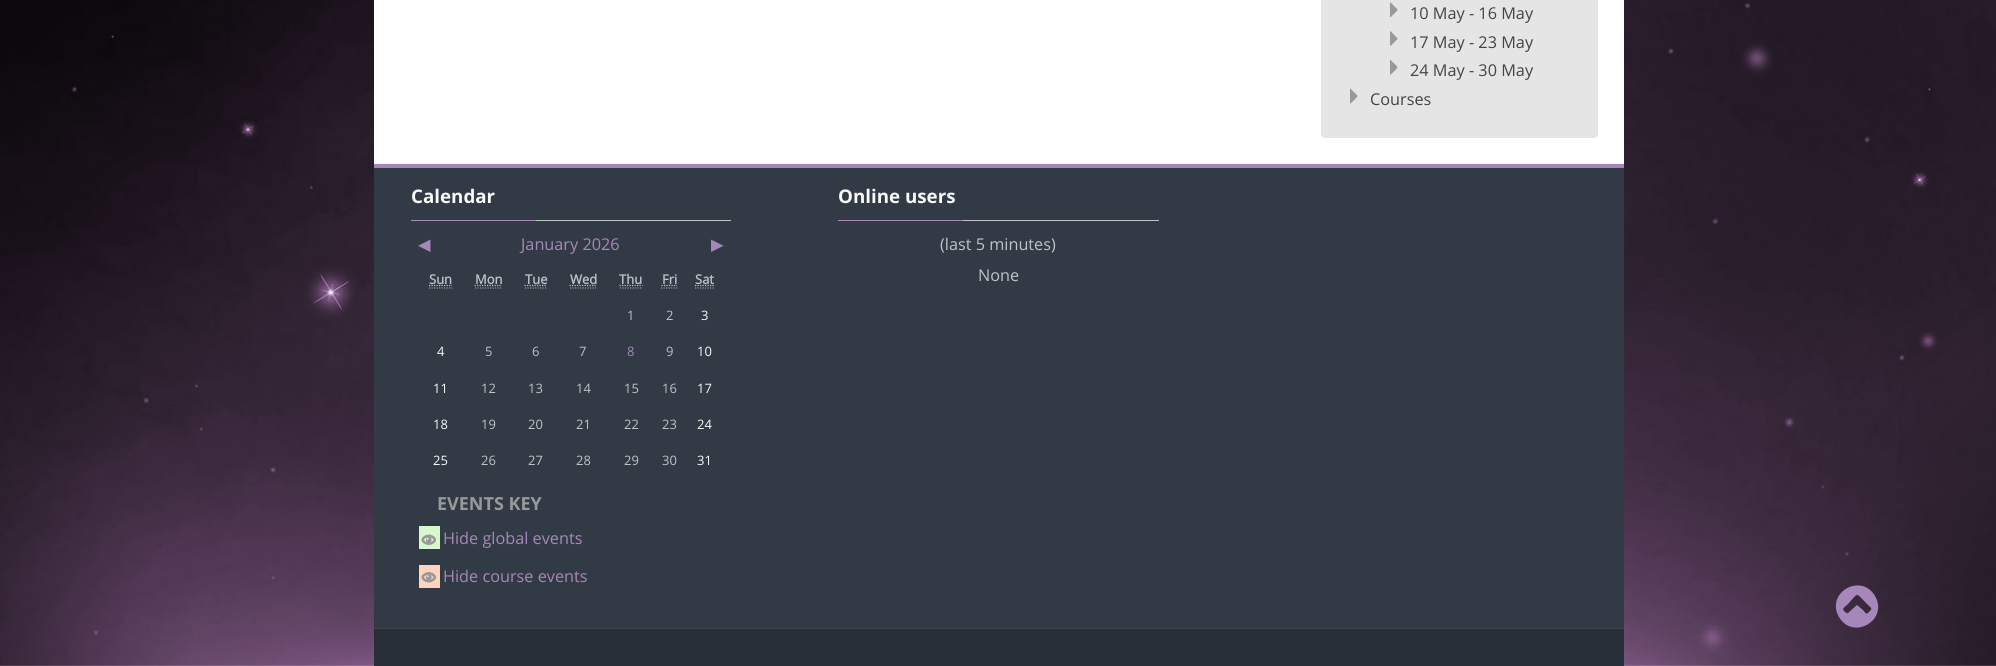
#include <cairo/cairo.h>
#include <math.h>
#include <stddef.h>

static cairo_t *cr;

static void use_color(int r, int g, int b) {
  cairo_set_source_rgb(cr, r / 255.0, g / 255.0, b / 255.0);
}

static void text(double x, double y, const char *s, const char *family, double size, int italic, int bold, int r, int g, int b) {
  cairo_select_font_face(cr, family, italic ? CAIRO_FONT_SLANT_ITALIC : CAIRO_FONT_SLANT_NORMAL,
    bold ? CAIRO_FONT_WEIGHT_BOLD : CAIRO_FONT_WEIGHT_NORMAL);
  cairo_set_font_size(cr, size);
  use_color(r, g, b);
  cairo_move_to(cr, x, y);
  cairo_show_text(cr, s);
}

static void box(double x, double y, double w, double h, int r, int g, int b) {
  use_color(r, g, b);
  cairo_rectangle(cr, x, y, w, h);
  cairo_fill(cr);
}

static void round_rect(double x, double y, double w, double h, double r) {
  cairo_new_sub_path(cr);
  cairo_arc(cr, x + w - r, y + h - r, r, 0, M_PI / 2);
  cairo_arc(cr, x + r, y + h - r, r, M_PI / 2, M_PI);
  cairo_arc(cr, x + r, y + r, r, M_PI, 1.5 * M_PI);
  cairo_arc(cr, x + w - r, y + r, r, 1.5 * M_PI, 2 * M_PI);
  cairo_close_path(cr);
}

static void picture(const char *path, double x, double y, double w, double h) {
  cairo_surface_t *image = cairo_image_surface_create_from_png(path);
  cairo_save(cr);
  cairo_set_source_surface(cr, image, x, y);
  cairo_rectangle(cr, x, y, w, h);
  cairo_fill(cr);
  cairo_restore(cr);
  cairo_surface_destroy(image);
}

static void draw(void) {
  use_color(255, 255, 255);
  cairo_paint(cr);
  picture("img_01.png", 0, 0, 1996, 666);
  box(374, 0, 1250, 164, 255, 255, 255);
  use_color(229, 229, 229);
  round_rect(1321, -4, 277, 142, 4);
  cairo_fill(cr);
  picture("img_02.png", 1390, 2, 8, 16);
  picture("img_03.png", 1390, 31, 8, 15);
  picture("img_04.png", 1390, 59, 8, 16);
  picture("img_05.png", 1350, 88, 8, 16);
  use_color(167, 135, 185);
  cairo_new_path(cr);
  cairo_move_to(cr, 1868, 613);
  cairo_curve_to(cr, 1873, 608, 1872, 609, 1867, 604);
  cairo_curve_to(cr, 1855, 592, 1859, 592, 1848, 604);
  cairo_curve_to(cr, 1844, 608, 1841, 608, 1845, 612);
  cairo_curve_to(cr, 1846, 612, 1847, 614, 1848, 613);
  cairo_line_to(cr, 1857, 605);
  cairo_line_to(cr, 1863, 610);
  cairo_curve_to(cr, 1864, 611, 1866, 615, 1868, 613);
  cairo_close_path(cr);
  cairo_move_to(cr, 1875, 596);
  cairo_curve_to(cr, 1889, 620, 1853, 641, 1839, 617);
  cairo_curve_to(cr, 1825, 593, 1861, 572, 1875, 596);
  cairo_close_path(cr);
  cairo_fill(cr);
  box(374, 168, 1250, 460, 50, 58, 69);
  box(374, 164, 1250, 4, 167, 135, 185);
  box(536, 220, 195, 1, 189, 195, 199);
  box(411, 220, 125, 1, 167, 135, 185);
  cairo_new_path(cr);
  cairo_move_to(cr, 429, 288);
  cairo_line_to(cr, 452.5, 288);
  use_color(153, 153, 153);
  cairo_set_line_width(cr, 1.2);
  cairo_set_dash(cr, (double[]){1.25, 1.25}, 2, 0);
  cairo_stroke(cr);
  cairo_new_path(cr);
  cairo_move_to(cr, 429, 285.5);
  cairo_line_to(cr, 452, 285.5);
  use_color(189, 195, 199);
  cairo_stroke(cr);
  cairo_new_path(cr);
  cairo_move_to(cr, 475, 288);
  cairo_line_to(cr, 502.5, 288);
  use_color(153, 153, 153);
  cairo_stroke(cr);
  cairo_new_path(cr);
  cairo_move_to(cr, 474.5, 285.5);
  cairo_line_to(cr, 502, 285.5);
  use_color(189, 195, 199);
  cairo_stroke(cr);
  cairo_new_path(cr);
  cairo_move_to(cr, 525, 288);
  cairo_line_to(cr, 547.5, 288);
  use_color(153, 153, 153);
  cairo_stroke(cr);
  cairo_new_path(cr);
  cairo_move_to(cr, 524.5, 285.5);
  cairo_line_to(cr, 547, 285.5);
  use_color(189, 195, 199);
  cairo_stroke(cr);
  cairo_new_path(cr);
  cairo_move_to(cr, 570, 288);
  cairo_line_to(cr, 596, 288);
  use_color(153, 153, 153);
  cairo_stroke(cr);
  cairo_new_path(cr);
  cairo_move_to(cr, 569.5, 285.5);
  cairo_line_to(cr, 597, 285.5);
  use_color(189, 195, 199);
  cairo_stroke(cr);
  cairo_new_path(cr);
  cairo_move_to(cr, 620, 288);
  cairo_line_to(cr, 642.5, 288);
  use_color(153, 153, 153);
  cairo_stroke(cr);
  cairo_new_path(cr);
  cairo_move_to(cr, 619.5, 285.5);
  cairo_line_to(cr, 642.5, 285.5);
  use_color(189, 195, 199);
  cairo_stroke(cr);
  cairo_new_path(cr);
  cairo_move_to(cr, 661, 288);
  cairo_line_to(cr, 677.5, 288);
  use_color(153, 153, 153);
  cairo_stroke(cr);
  cairo_new_path(cr);
  cairo_move_to(cr, 661.5, 285.5);
  cairo_line_to(cr, 677, 285.5);
  use_color(189, 195, 199);
  cairo_stroke(cr);
  cairo_new_path(cr);
  cairo_move_to(cr, 695, 288);
  cairo_line_to(cr, 714, 288);
  use_color(153, 153, 153);
  cairo_stroke(cr);
  cairo_new_path(cr);
  cairo_move_to(cr, 695, 285.5);
  cairo_line_to(cr, 714, 285.5);
  use_color(189, 195, 199);
  cairo_stroke(cr);
  box(419, 526, 21, 23, 214, 248, 205);
  picture("img_06.png", 421, 534, 15, 11);
  box(419, 565, 21, 23, 255, 211, 189);
  picture("img_07.png", 421, 572, 15, 11);
  box(963, 220, 196, 1, 189, 195, 199);
  box(838, 220, 125, 1, 167, 135, 185);
  box(374, 629, 1250, 37, 41, 47, 56);
  box(374, 628, 1250, 1, 68, 68, 68);
  text(1410, 19, "10 May - 16 May", "Open Sans", 16.25, 0, 0, 68, 68, 68);
  text(1410, 48, "17 May - 23 May", "Open Sans", 16.25, 0, 0, 68, 68, 68);
  text(1410, 76, "24 May - 30 May", "Open Sans", 16.25, 0, 0, 68, 68, 68);
  text(1370, 105, "Courses", "Open Sans", 16.25, 0, 0, 68, 68, 68);
  text(411, 203, "Calendar", "Open Sans", 18.75, 0, 1, 249, 249, 249);
  text(418, 250, "◀", "DejaVu Sans", 16.25, 0, 0, 167, 135, 185);
  text(521, 250, "January 2026", "Open Sans", 16.25, 0, 0, 167, 135, 185);
  text(711, 250, "▶", "DejaVu Sans", 16.25, 0, 0, 167, 135, 185);
  text(429, 284, "Sun", "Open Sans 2", 13, 0, 1, 189, 195, 199);
  text(475, 284, "Mon", "Open Sans 2", 13, 0, 1, 189, 195, 199);
  text(525, 284, "Tue", "Open Sans 2", 13, 0, 1, 189, 195, 199);
  text(570, 284, "Wed", "Open Sans 2", 13, 0, 1, 189, 195, 199);
  text(619, 284, "Thu", "Open Sans 2", 13, 0, 1, 189, 195, 199);
  text(662, 284, "Fri", "Open Sans 2", 13, 0, 1, 189, 195, 199);
  text(695, 284, "Sat", "Open Sans 2", 13, 0, 1, 189, 195, 199);
  text(627, 320, "1", "Open Sans", 13, 0, 0, 189, 195, 199);
  text(666, 320, "2", "Open Sans", 13, 0, 0, 189, 195, 199);
  text(701, 320, "3", "Open Sans", 13, 0, 0, 249, 249, 249);
  text(437, 356, "4", "Open Sans", 13, 0, 0, 249, 249, 249);
  text(485, 356, "5", "Open Sans", 13, 0, 0, 189, 195, 199);
  text(532, 356, "6", "Open Sans", 13, 0, 0, 189, 195, 199);
  text(579, 356, "7", "Open Sans", 13, 0, 0, 189, 195, 199);
  text(627, 356, "8", "Open Sans", 13, 0, 0, 167, 135, 185);
  text(666, 356, "9", "Open Sans", 13, 0, 0, 189, 195, 199);
  text(697, 356, "10", "Open Sans", 13, 0, 0, 249, 249, 249);
  text(433, 393, "11", "Open Sans", 13, 0, 0, 249, 249, 249);
  text(481, 393, "12", "Open Sans", 13, 0, 0, 189, 195, 199);
  text(528, 393, "13", "Open Sans", 13, 0, 0, 189, 195, 199);
  text(576, 393, "14", "Open Sans", 13, 0, 0, 189, 195, 199);
  text(624, 393, "15", "Open Sans", 13, 0, 0, 189, 195, 199);
  text(662, 393, "16", "Open Sans", 13, 0, 0, 189, 195, 199);
  text(697, 393, "17", "Open Sans", 13, 0, 0, 249, 249, 249);
  text(433, 429, "18", "Open Sans", 13, 0, 0, 249, 249, 249);
  text(481, 429, "19", "Open Sans", 13, 0, 0, 189, 195, 199);
  text(528, 429, "20", "Open Sans", 13, 0, 0, 189, 195, 199);
  text(576, 429, "21", "Open Sans", 13, 0, 0, 189, 195, 199);
  text(624, 429, "22", "Open Sans", 13, 0, 0, 189, 195, 199);
  text(662, 429, "23", "Open Sans", 13, 0, 0, 189, 195, 199);
  text(697, 429, "24", "Open Sans", 13, 0, 0, 249, 249, 249);
  text(433, 465, "25", "Open Sans", 13, 0, 0, 249, 249, 249);
  text(481, 465, "26", "Open Sans", 13, 0, 0, 189, 195, 199);
  text(528, 465, "27", "Open Sans", 13, 0, 0, 189, 195, 199);
  text(576, 465, "28", "Open Sans", 13, 0, 0, 189, 195, 199);
  text(624, 465, "29", "Open Sans", 13, 0, 0, 189, 195, 199);
  text(662, 465, "30", "Open Sans", 13, 0, 0, 189, 195, 199);
  text(697, 465, "31", "Open Sans", 13, 0, 0, 249, 249, 249);
  text(437, 510, "EVENTS KEY", "Open Sans", 18, 0, 1, 153, 153, 153);
  text(443, 544, "Hide global events", "Open Sans", 16.25, 0, 0, 167, 135, 185);
  text(443, 582, "Hide course events", "Open Sans", 16.25, 0, 0, 167, 135, 185);
  text(838, 203, "Online users", "Open Sans", 18.75, 0, 1, 249, 249, 249);
  text(940, 250, "(last 5 minutes)", "Open Sans", 16.25, 0, 0, 189, 195, 199);
  text(978, 281, "None", "Open Sans", 16.25, 0, 0, 189, 195, 199);
}

int main(void) {
  cairo_surface_t *surface = cairo_image_surface_create(CAIRO_FORMAT_RGB24, 1996, 666);
  cr = cairo_create(surface);
  cairo_font_options_t *options = cairo_font_options_create();
  cairo_font_options_set_hint_metrics(options, CAIRO_HINT_METRICS_OFF);
  cairo_font_options_set_hint_style(options, CAIRO_HINT_STYLE_NONE);
  cairo_set_font_options(cr, options);
  cairo_set_miter_limit(cr, 4);
  draw();
  cairo_surface_write_to_png(surface, "out.png");
  cairo_font_options_destroy(options);
  cairo_destroy(cr);
  cairo_surface_destroy(surface);
  return 0;
}
